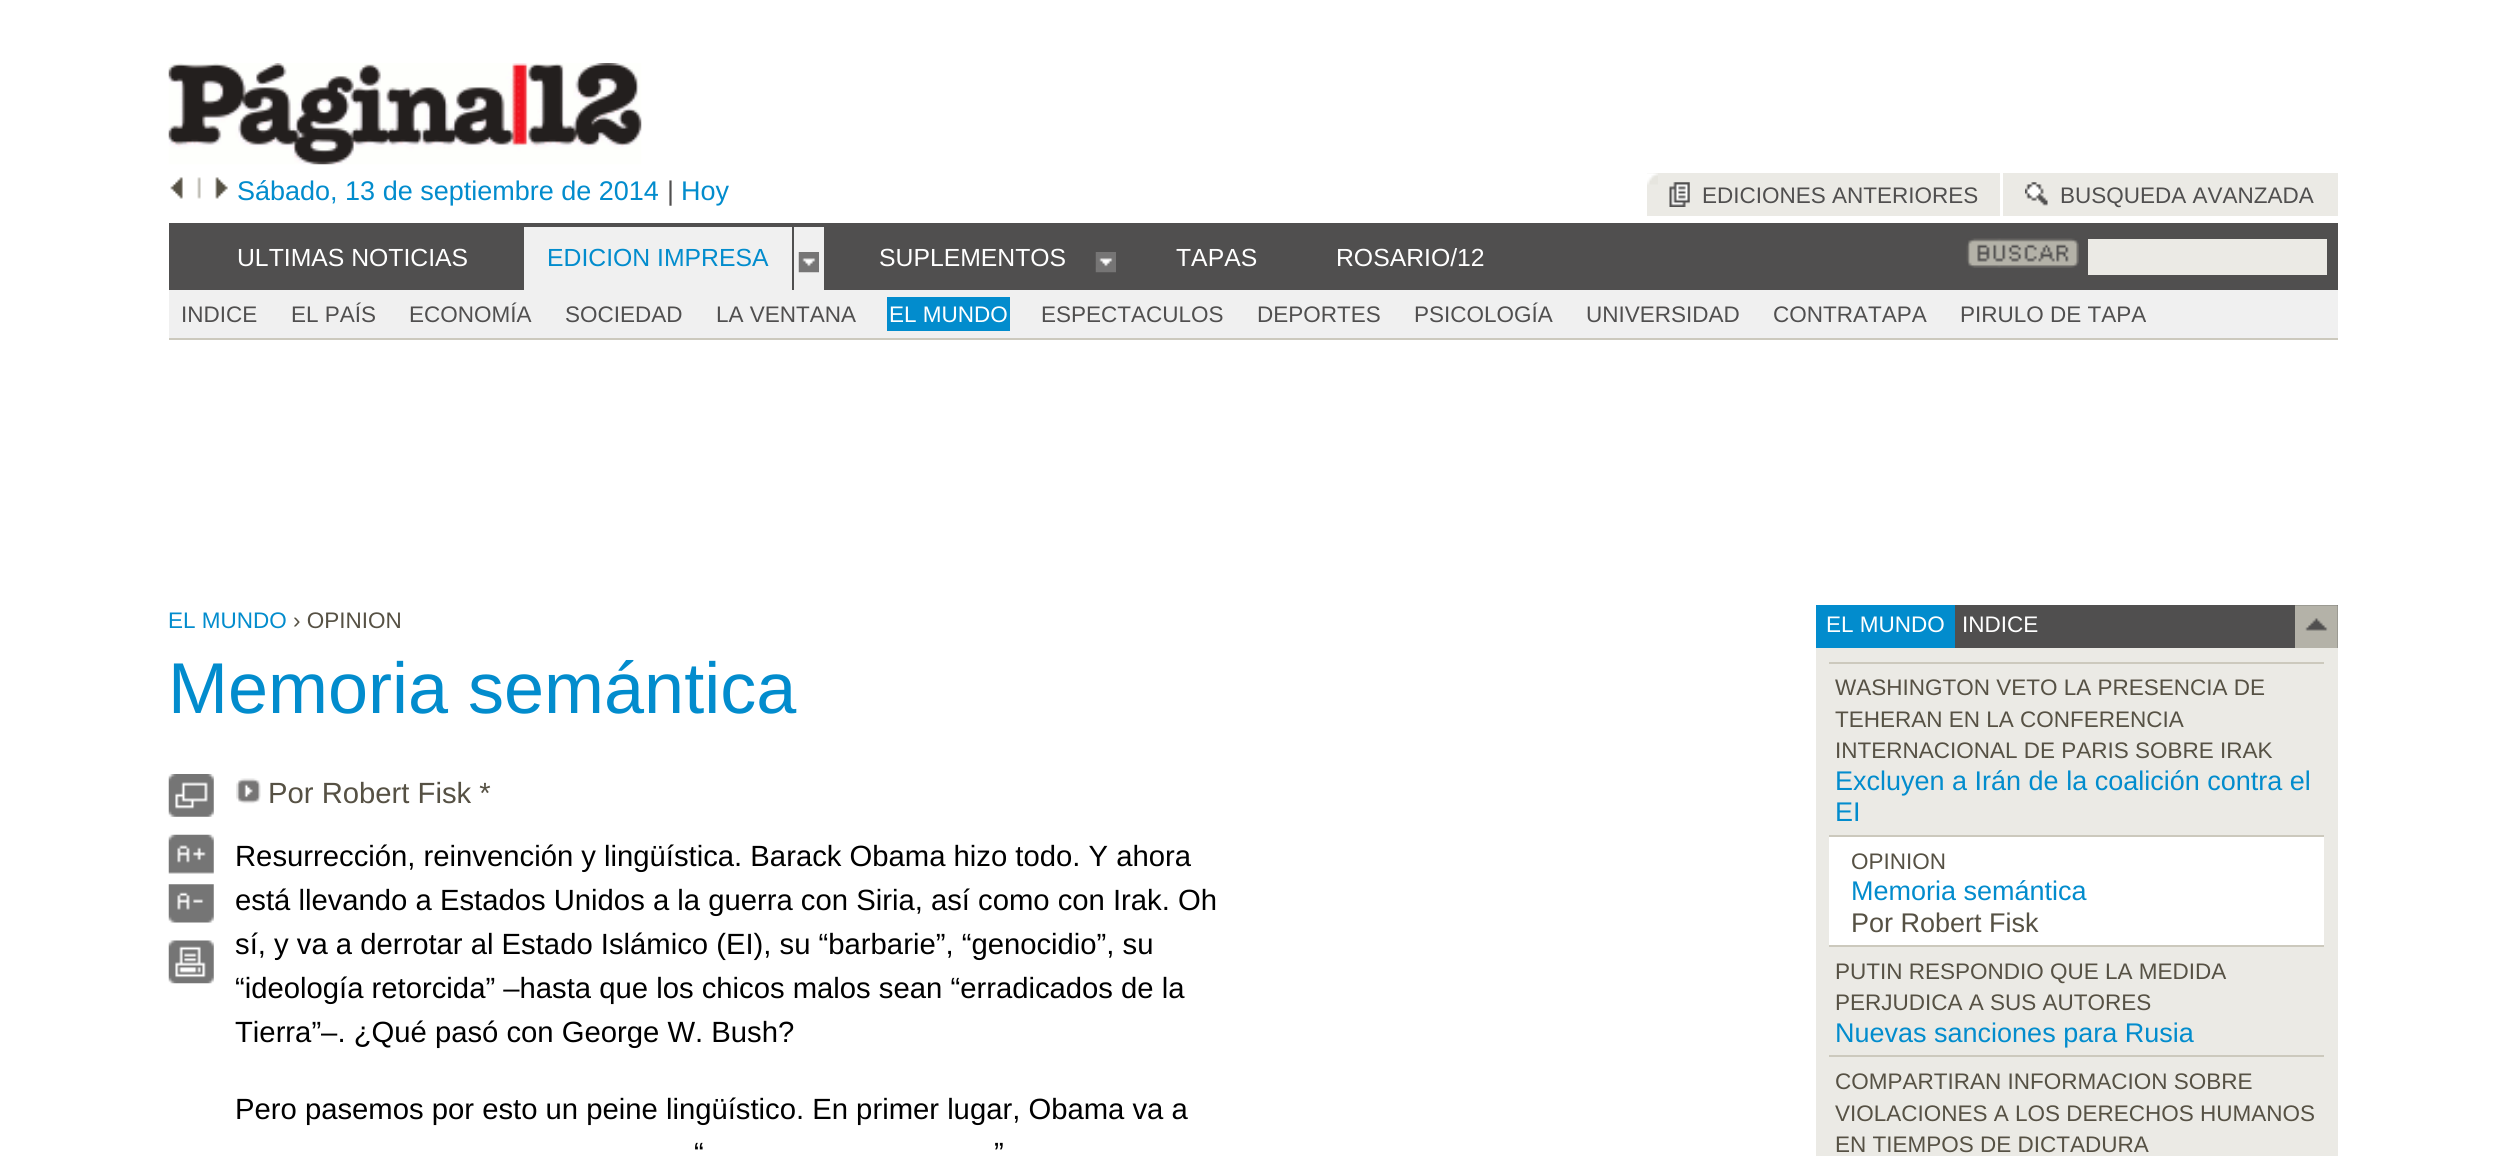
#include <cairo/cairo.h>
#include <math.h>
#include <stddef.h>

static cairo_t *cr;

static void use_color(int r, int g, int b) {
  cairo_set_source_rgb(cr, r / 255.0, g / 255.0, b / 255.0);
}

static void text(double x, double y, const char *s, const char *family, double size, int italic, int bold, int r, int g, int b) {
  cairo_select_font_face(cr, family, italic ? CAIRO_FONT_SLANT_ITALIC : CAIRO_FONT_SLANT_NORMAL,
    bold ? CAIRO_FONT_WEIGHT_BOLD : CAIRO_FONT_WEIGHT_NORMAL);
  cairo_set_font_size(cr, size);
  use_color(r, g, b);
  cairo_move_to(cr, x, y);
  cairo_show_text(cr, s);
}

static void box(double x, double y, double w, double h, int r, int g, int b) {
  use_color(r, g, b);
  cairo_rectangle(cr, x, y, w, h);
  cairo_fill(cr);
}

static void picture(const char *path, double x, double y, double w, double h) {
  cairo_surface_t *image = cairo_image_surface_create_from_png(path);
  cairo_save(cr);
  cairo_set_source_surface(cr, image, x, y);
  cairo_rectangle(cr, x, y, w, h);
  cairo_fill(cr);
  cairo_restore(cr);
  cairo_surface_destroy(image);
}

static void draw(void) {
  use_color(255, 255, 255);
  cairo_paint(cr);
  picture("img_01.png", 168, 63, 474, 102);
  picture("img_02.png", 170, 177, 13, 22);
  picture("img_03.png", 197, 177, 4, 22);
  picture("img_04.png", 215, 177, 13, 22);
  box(1647, 173, 353, 43, 235, 234, 229);
  picture("img_05.png", 1647, 173, 11, 12);
  picture("img_06.png", 1669, 182, 21, 25);
  box(2003, 173, 335, 43, 235, 234, 229);
  picture("img_07.png", 2025, 182, 23, 24);
  box(169, 223, 2169, 67, 80, 79, 79);
  box(524, 227, 268, 63, 240, 240, 240);
  box(794, 227, 30, 63, 240, 240, 240);
  picture("img_08.png", 798, 252, 21, 21);
  picture("img_09.png", 1095, 252, 21, 21);
  picture("img_10.png", 1966, 238, 113, 30);
  box(2088, 239, 239, 36, 235, 234, 229);
  box(169, 290, 2169, 48, 240, 240, 240);
  box(169, 338, 2169, 2, 204, 201, 189);
  box(887, 297, 123, 34, 2, 140, 205);
  picture("img_11.png", 168, 774, 46, 43);
  picture("img_12.png", 168, 834, 46, 40);
  picture("img_13.png", 168, 884, 46, 39);
  picture("img_14.png", 168, 940, 46, 44);
  picture("img_15.png", 236, 778, 25, 26);
  box(1816, 605, 139, 43, 2, 140, 205);
  box(1955, 605, 383, 43, 80, 79, 79);
  picture("img_16.png", 2295, 605, 43, 43);
  box(1816, 648, 522, 508, 235, 234, 229);
  box(1829, 662, 495, 2, 204, 201, 189);
  box(1829, 837, 495, 108, 255, 255, 255);
  box(1829, 835, 495, 2, 204, 201, 189);
  box(1829, 945, 495, 2, 204, 201, 189);
  box(1829, 1055, 495, 2, 204, 201, 189);
  text(237, 200, "Sábado, 13 de septiembre de 2014", "Liberation Sans", 27, 0, 0, 2, 140, 205);
  text(667, 200, "|", "Liberation Sans", 27, 0, 0, 80, 79, 79);
  text(681, 200, "Hoy", "Liberation Sans", 27, 0, 0, 2, 140, 205);
  text(1702, 203, "EDICIONES ANTERIORES", "Liberation Sans", 22.5, 0, 0, 80, 79, 79);
  text(2060, 203, "BUSQUEDA AVANZADA", "Liberation Sans", 22.5, 0, 0, 80, 79, 79);
  text(237, 266, "ULTIMAS NOTICIAS", "Liberation Sans", 24.75, 0, 0, 255, 255, 255);
  text(547, 266, "EDICION IMPRESA", "Liberation Sans", 24.75, 0, 0, 2, 140, 205);
  text(879, 266, "SUPLEMENTOS", "Liberation Sans", 24.75, 0, 0, 255, 255, 255);
  text(1176, 266, "TAPAS", "Liberation Sans", 24.75, 0, 0, 255, 255, 255);
  text(1336, 266, "ROSARIO/12", "Liberation Sans", 24.75, 0, 0, 255, 255, 255);
  text(181, 322, "INDICE", "Liberation Sans", 22.5, 0, 0, 80, 79, 79);
  text(291, 322, "EL PAÍS", "Liberation Sans", 22.5, 0, 0, 80, 79, 79);
  text(409, 322, "ECONOMÍA", "Liberation Sans", 22.5, 0, 0, 80, 79, 79);
  text(565, 322, "SOCIEDAD", "Liberation Sans", 22.5, 0, 0, 80, 79, 79);
  text(716, 322, "LA VENTANA", "Liberation Sans", 22.5, 0, 0, 80, 79, 79);
  text(889, 322, "EL MUNDO", "Liberation Sans", 22.5, 0, 0, 255, 255, 255);
  text(1041, 322, "ESPECTACULOS", "Liberation Sans", 22.5, 0, 0, 80, 79, 79);
  text(1257, 322, "DEPORTES", "Liberation Sans", 22.5, 0, 0, 80, 79, 79);
  text(1414, 322, "PSICOLOGÍA", "Liberation Sans", 22.5, 0, 0, 80, 79, 79);
  text(1586, 322, "UNIVERSIDAD", "Liberation Sans", 22.5, 0, 0, 80, 79, 79);
  text(1773, 322, "CONTRATAPA", "Liberation Sans", 22.5, 0, 0, 80, 79, 79);
  text(1960, 322, "PIRULO DE TAPA", "Liberation Sans", 22.5, 0, 0, 80, 79, 79);
  text(168, 628, "EL MUNDO", "Liberation Sans", 22.5, 0, 0, 2, 140, 205);
  text(293, 628, "› OPINION", "Liberation Sans", 22.5, 0, 0, 86, 81, 68);
  text(168, 713, "Memoria semántica", "Liberation Sans", 72, 0, 0, 2, 140, 205);
  text(268, 803, "Por Robert Fisk *", "Liberation Sans", 29.25, 0, 0, 86, 81, 68);
  text(235, 866, "Resurrección, reinvención y lingüística. Barack Obama hizo todo. Y ahora", "Liberation Sans", 29.25, 0, 0, 0, 0, 0);
  text(235, 910, "está llevando a Estados Unidos a la guerra con Siria, así como con Irak. Oh", "Liberation Sans", 29.25, 0, 0, 0, 0, 0);
  text(235, 954, "sí, y va a derrotar al Estado Islámico (EI), su “barbarie”, “genocidio”, su", "Liberation Sans", 29.25, 0, 0, 0, 0, 0);
  text(235, 998, "“ideología retorcida” –hasta que los chicos malos sean “erradicados de la", "Liberation Sans", 29.25, 0, 0, 0, 0, 0);
  text(235, 1042, "Tierra”–. ¿Qué pasó con George W. Bush?", "Liberation Sans", 29.25, 0, 0, 0, 0, 0);
  text(235, 1119, "Pero pasemos por esto un peine lingüístico. En primer lugar, Obama va a", "Liberation Sans", 29.25, 0, 0, 0, 0, 0);
  text(694, 1163, "“", "Liberation Sans", 29.25, 0, 0, 0, 0, 0);
  text(994, 1163, "”", "Liberation Sans", 29.25, 0, 0, 0, 0, 0);
  text(1826, 632, "EL MUNDO", "Liberation Sans", 22.5, 0, 0, 255, 255, 255);
  text(1962, 632, "INDICE", "Liberation Sans", 22.5, 0, 0, 255, 255, 255);
  text(1835, 695, "WASHINGTON VETO LA PRESENCIA DE", "Liberation Sans", 22.5, 0, 0, 86, 81, 68);
  text(1835, 727, "TEHERAN EN LA CONFERENCIA", "Liberation Sans", 22.5, 0, 0, 86, 81, 68);
  text(1835, 758, "INTERNACIONAL DE PARIS SOBRE IRAK", "Liberation Sans", 22.5, 0, 0, 86, 81, 68);
  text(1835, 790, "Excluyen a Irán de la coalición contra el", "Liberation Sans", 27, 0, 0, 2, 140, 205);
  text(1835, 821, "EI", "Liberation Sans", 27, 0, 0, 2, 140, 205);
  text(1851, 869, "OPINION", "Liberation Sans", 22.5, 0, 0, 86, 81, 68);
  text(1851, 900, "Memoria semántica", "Liberation Sans", 27, 0, 0, 2, 140, 205);
  text(1851, 932, "Por Robert Fisk", "Liberation Sans", 27, 0, 0, 86, 81, 68);
  text(1835, 979, "PUTIN RESPONDIO QUE LA MEDIDA", "Liberation Sans", 22.5, 0, 0, 86, 81, 68);
  text(1835, 1010, "PERJUDICA A SUS AUTORES", "Liberation Sans", 22.5, 0, 0, 86, 81, 68);
  text(1835, 1042, "Nuevas sanciones para Rusia", "Liberation Sans", 27, 0, 0, 2, 140, 205);
  text(1835, 1089, "COMPARTIRAN INFORMACION SOBRE", "Liberation Sans", 22.5, 0, 0, 86, 81, 68);
  text(1835, 1121, "VIOLACIONES A LOS DERECHOS HUMANOS", "Liberation Sans", 22.5, 0, 0, 86, 81, 68);
  text(1835, 1152, "EN TIEMPOS DE DICTADURA", "Liberation Sans", 22.5, 0, 0, 86, 81, 68);
}

int main(void) {
  cairo_surface_t *surface = cairo_image_surface_create(CAIRO_FORMAT_RGB24, 2504, 1156);
  cr = cairo_create(surface);
  cairo_font_options_t *options = cairo_font_options_create();
  cairo_font_options_set_hint_metrics(options, CAIRO_HINT_METRICS_OFF);
  cairo_font_options_set_hint_style(options, CAIRO_HINT_STYLE_NONE);
  cairo_set_font_options(cr, options);
  cairo_set_miter_limit(cr, 4);
  draw();
  cairo_surface_write_to_png(surface, "out.png");
  cairo_font_options_destroy(options);
  cairo_destroy(cr);
  cairo_surface_destroy(surface);
  return 0;
}
